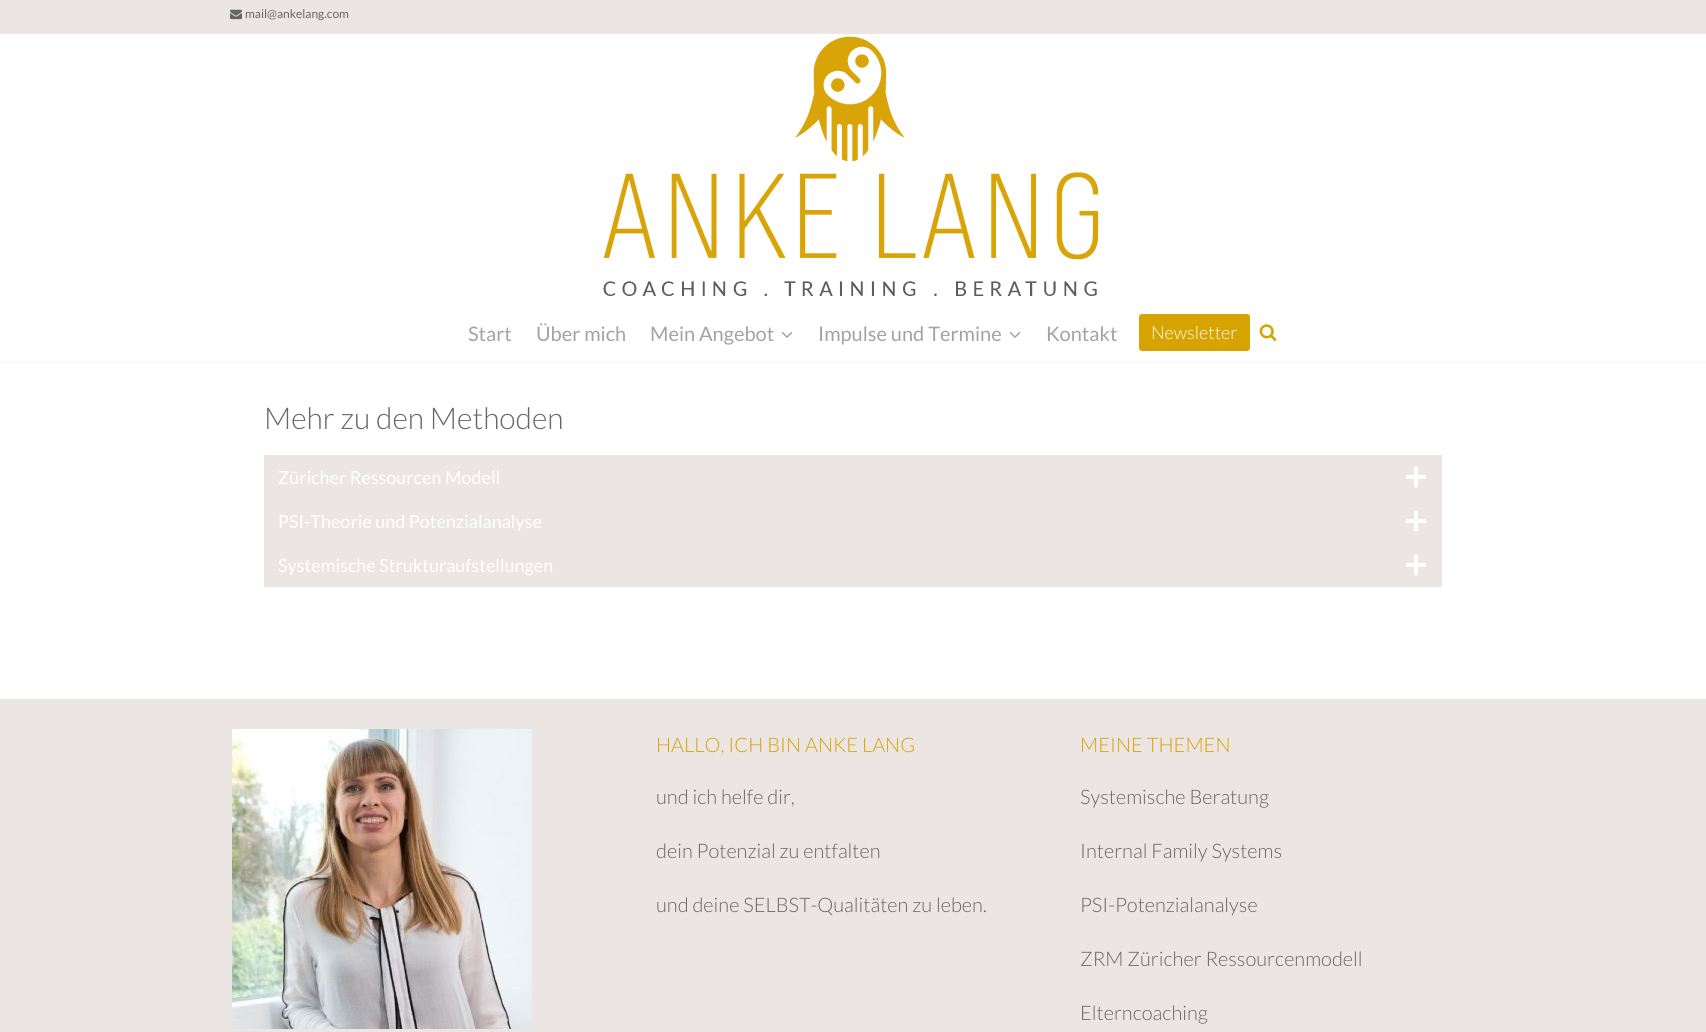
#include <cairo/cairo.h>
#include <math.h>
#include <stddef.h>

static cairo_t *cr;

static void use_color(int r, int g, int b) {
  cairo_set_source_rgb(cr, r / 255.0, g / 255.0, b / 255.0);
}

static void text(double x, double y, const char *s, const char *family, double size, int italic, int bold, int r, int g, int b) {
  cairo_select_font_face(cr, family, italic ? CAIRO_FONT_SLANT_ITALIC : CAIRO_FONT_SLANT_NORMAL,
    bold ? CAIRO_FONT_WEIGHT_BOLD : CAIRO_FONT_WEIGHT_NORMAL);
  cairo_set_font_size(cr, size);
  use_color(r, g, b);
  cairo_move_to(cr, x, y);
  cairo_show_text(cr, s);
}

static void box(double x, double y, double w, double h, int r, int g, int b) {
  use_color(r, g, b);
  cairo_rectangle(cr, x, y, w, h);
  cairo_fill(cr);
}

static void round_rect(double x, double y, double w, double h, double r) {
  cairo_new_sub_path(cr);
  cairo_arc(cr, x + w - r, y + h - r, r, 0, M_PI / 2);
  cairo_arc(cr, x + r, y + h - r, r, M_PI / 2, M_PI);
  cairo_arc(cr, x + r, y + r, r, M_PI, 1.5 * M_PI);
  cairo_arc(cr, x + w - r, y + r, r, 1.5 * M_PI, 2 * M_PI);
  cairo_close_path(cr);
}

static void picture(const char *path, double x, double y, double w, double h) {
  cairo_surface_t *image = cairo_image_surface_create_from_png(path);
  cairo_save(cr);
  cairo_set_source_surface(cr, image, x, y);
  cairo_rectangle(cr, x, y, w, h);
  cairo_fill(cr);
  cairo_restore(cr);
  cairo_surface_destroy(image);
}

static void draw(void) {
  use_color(255, 255, 255);
  cairo_paint(cr);
  box(0, 0, 1706, 34, 235, 229, 228);
  picture("img_01.png", 230, 9, 12, 11);
  picture("img_02.png", 603, 36, 496, 260);
  box(0, 362, 1706, 1, 249, 249, 249);
  picture("img_03.png", 781, 332, 12, 6);
  picture("img_03.png", 1009, 332, 12, 6);
  use_color(215, 163, 1);
  round_rect(1140, 315, 109, 35, 2);
  cairo_fill_preserve(cr);
  cairo_stroke(cr);
  picture("img_04.png", 1259, 324, 18, 17);
  box(264, 455, 1178, 132, 235, 229, 228);
  box(1414, 467, 4, 20, 255, 255, 255);
  box(1406, 475, 20, 4, 255, 255, 255);
  box(1414, 511, 4, 20, 255, 255, 255);
  box(1406, 519, 20, 4, 255, 255, 255);
  box(1414, 555, 4, 20, 255, 255, 255);
  box(1406, 563, 20, 4, 255, 255, 255);
  box(0, 699, 1706, 333, 235, 229, 228);
  picture("img_05.png", 232, 729, 300, 300);
  text(245, 18, "mail@ankelang.com", "Lato", 12, 0, 0, 102, 102, 102);
  text(468, 341, "Start", "Lato", 20, 0, 0, 163, 163, 163);
  text(536, 341, "Über mich", "Lato", 20, 0, 0, 163, 163, 163);
  text(650, 341, "Mein Angebot", "Lato", 20, 0, 0, 163, 163, 163);
  text(818, 341, "Impulse und Termine", "Lato", 20, 0, 0, 163, 163, 163);
  text(1046, 341, "Kontakt", "Lato", 20, 0, 0, 163, 163, 163);
  text(1151, 339, "Newsletter", "Lato Light", 18, 0, 0, 255, 255, 255);
  text(264, 429, "Mehr zu den Methoden", "Lato Light", 30, 0, 0, 102, 102, 102);
  text(278, 484, "Züricher Ressourcen Modell", "Lato", 18, 0, 0, 255, 255, 255);
  text(278, 528, "PSI-Theorie und Potenzialanalyse", "Lato", 18, 0, 0, 255, 255, 255);
  text(278, 572, "Systemische Strukturaufstellungen", "Lato", 18, 0, 0, 255, 255, 255);
  text(656, 752, "HALLO, ICH BIN ANKE LANG", "Lato Light", 20, 0, 0, 215, 163, 1);
  text(656, 804, "und ich helfe dir,", "Lato Light", 20, 0, 0, 102, 102, 102);
  text(656, 858, "dein Potenzial zu entfalten", "Lato Light", 20, 0, 0, 102, 102, 102);
  text(656, 912, "und deine SELBST-Qualitäten zu leben.", "Lato Light", 20, 0, 0, 102, 102, 102);
  text(1080, 752, "MEINE THEMEN", "Lato Light", 20, 0, 0, 215, 163, 1);
  text(1080, 804, "Systemische Beratung", "Lato Light", 20, 0, 0, 102, 102, 102);
  text(1080, 858, "Internal Family Systems", "Lato Light", 20, 0, 0, 102, 102, 102);
  text(1080, 912, "PSI-Potenzialanalyse", "Lato Light", 20, 0, 0, 102, 102, 102);
  text(1080, 966, "ZRM Züricher Ressourcenmodell", "Lato Light", 20, 0, 0, 102, 102, 102);
  text(1080, 1020, "Elterncoaching", "Lato Light", 20, 0, 0, 102, 102, 102);
}

int main(void) {
  cairo_surface_t *surface = cairo_image_surface_create(CAIRO_FORMAT_RGB24, 1706, 1032);
  cr = cairo_create(surface);
  cairo_font_options_t *options = cairo_font_options_create();
  cairo_font_options_set_hint_metrics(options, CAIRO_HINT_METRICS_OFF);
  cairo_font_options_set_hint_style(options, CAIRO_HINT_STYLE_NONE);
  cairo_set_font_options(cr, options);
  cairo_set_miter_limit(cr, 4);
  draw();
  cairo_surface_write_to_png(surface, "out.png");
  cairo_font_options_destroy(options);
  cairo_destroy(cr);
  cairo_surface_destroy(surface);
  return 0;
}
